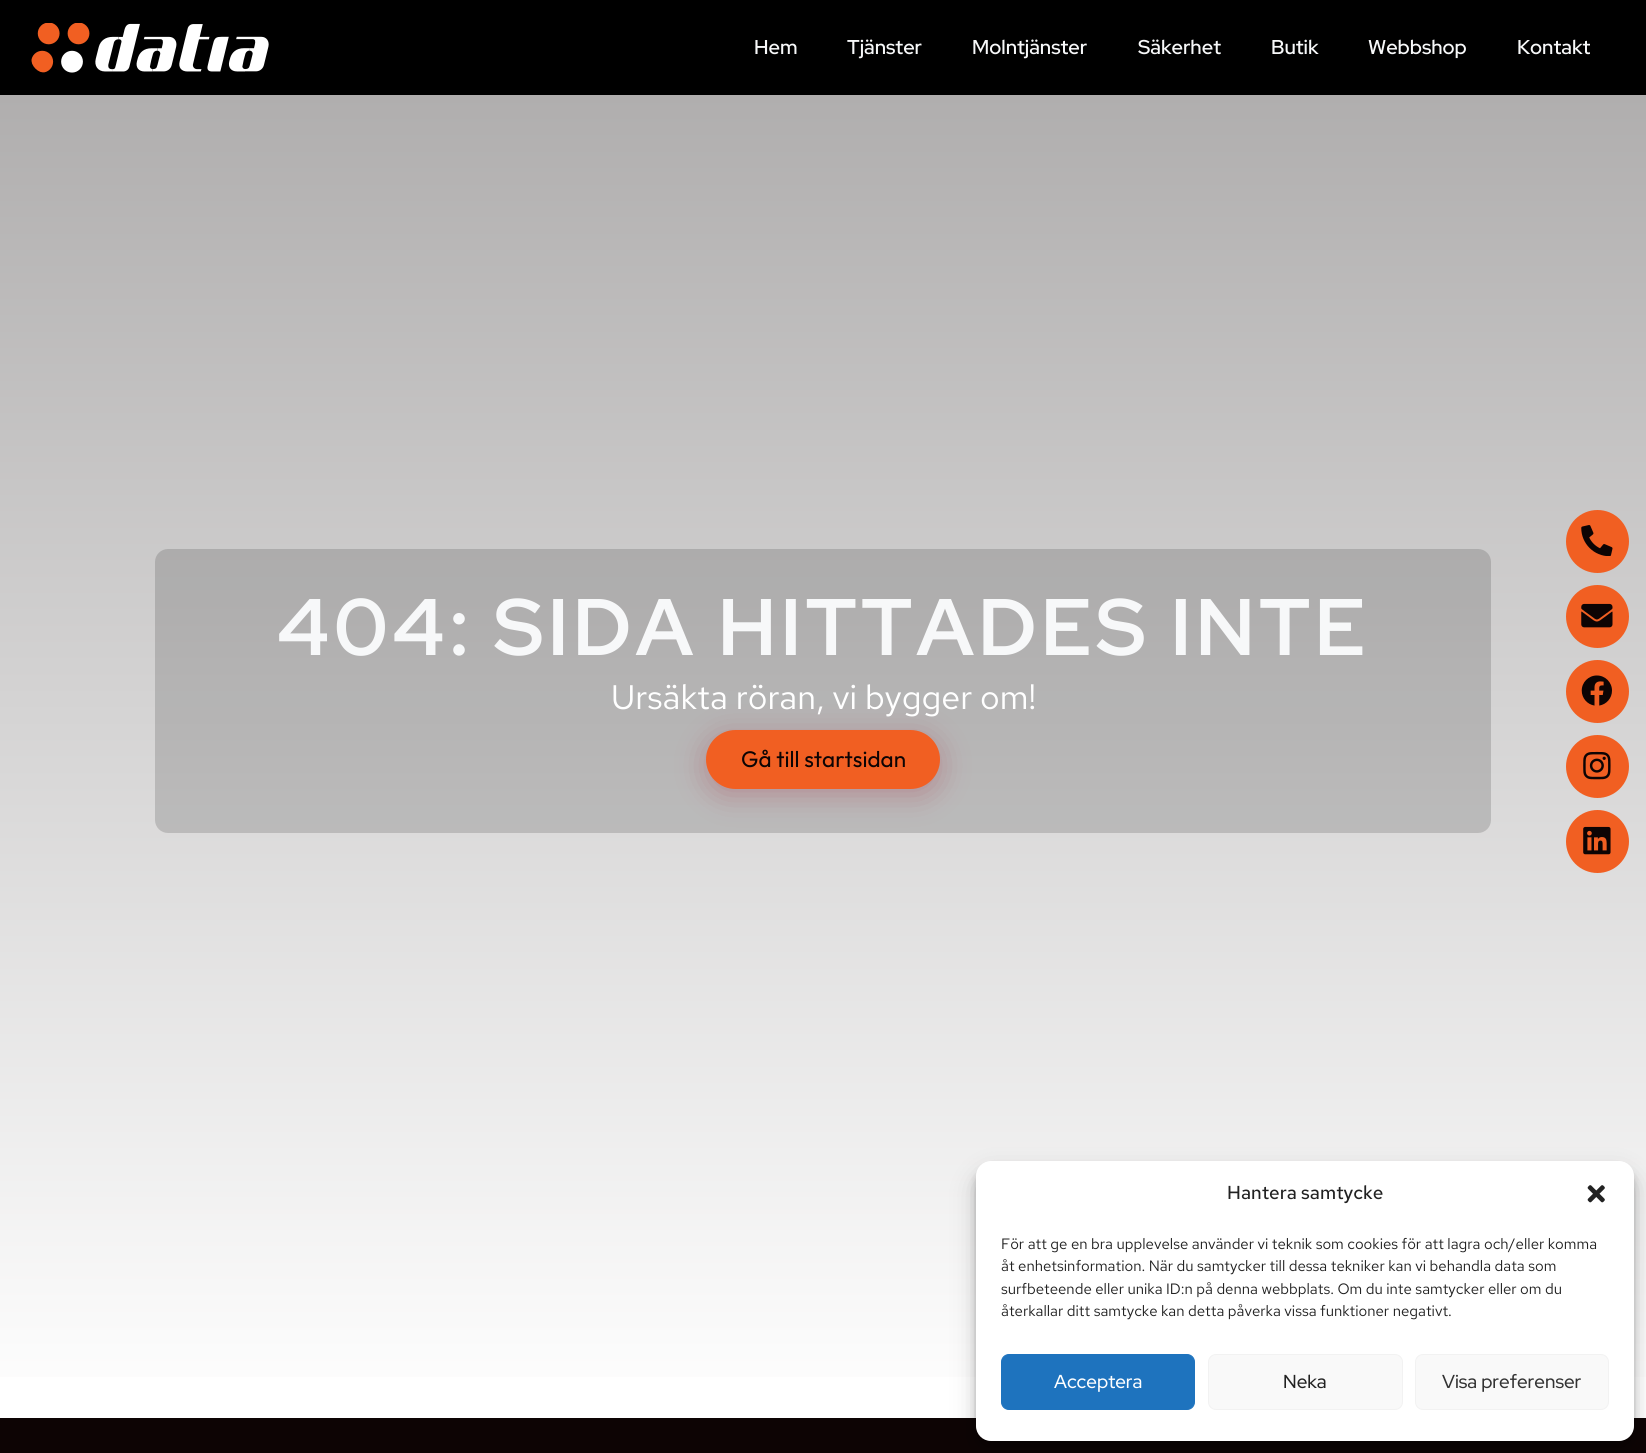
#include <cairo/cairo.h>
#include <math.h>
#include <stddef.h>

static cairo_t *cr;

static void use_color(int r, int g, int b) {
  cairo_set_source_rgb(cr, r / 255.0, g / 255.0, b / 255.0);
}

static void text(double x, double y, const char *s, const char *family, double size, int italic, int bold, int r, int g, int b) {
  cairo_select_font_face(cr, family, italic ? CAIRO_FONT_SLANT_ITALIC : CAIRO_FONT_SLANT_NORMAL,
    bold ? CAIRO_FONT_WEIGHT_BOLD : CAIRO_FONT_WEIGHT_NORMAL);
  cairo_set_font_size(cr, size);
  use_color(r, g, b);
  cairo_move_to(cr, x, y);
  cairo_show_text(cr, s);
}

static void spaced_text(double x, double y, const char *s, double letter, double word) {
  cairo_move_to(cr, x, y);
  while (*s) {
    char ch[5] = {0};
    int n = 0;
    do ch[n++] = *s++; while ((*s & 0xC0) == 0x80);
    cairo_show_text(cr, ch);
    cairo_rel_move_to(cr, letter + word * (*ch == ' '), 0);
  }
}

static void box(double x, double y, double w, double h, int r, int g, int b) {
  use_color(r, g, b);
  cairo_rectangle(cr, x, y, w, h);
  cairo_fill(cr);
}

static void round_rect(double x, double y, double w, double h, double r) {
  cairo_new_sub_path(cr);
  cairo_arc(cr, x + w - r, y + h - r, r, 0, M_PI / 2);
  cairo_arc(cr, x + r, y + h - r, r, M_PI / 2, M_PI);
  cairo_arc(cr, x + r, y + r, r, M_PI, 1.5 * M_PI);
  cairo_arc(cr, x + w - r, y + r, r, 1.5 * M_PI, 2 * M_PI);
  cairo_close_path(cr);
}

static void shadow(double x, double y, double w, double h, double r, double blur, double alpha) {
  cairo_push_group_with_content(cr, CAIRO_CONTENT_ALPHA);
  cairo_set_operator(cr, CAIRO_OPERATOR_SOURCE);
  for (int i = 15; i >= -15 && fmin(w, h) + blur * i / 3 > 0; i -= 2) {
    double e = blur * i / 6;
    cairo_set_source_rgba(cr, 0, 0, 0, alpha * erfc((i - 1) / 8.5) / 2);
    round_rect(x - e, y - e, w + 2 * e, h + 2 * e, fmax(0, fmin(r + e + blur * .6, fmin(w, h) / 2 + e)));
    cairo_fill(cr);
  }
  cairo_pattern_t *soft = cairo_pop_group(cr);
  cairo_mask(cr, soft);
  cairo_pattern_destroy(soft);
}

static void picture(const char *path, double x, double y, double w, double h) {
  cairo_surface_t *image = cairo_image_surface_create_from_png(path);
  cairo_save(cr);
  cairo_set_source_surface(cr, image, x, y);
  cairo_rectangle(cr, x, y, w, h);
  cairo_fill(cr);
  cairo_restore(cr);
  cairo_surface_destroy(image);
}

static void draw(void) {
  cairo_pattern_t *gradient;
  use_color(255, 255, 255);
  cairo_paint(cr);
  box(0, 0, 1646, 95, 0, 0, 0);
  picture("img_01.png", 31, 23, 238, 50);
  gradient = cairo_pattern_create_linear(823, -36, 823, 1418);
  cairo_pattern_add_color_stop_rgba(gradient, 0, 0.659, 0.651, 0.651, 1);
  cairo_pattern_add_color_stop_rgba(gradient, 1, 1, 1, 1, 1);
  cairo_set_source(cr, gradient);
  cairo_pattern_destroy(gradient);
  cairo_rectangle(cr, 0, 95, 1646, 1282);
  cairo_fill(cr);
  cairo_set_source_rgba(cr, 0, 0, 0, 0.15);
  round_rect(155, 549, 1336, 284, 13);
  cairo_fill(cr);
  use_color(166, 33, 57);
  shadow(706, 736, 234, 59, 29.5, 15, 0.3);
  use_color(241, 95, 34);
  round_rect(706, 730, 234, 59, 29.5);
  cairo_fill(cr);
  cairo_arc(cr, 1597.5, 541.5, 31.5, 0, 2 * M_PI);
  cairo_fill(cr);
  picture("img_02.png", 1581, 525, 32, 31);
  cairo_arc(cr, 1597.5, 616.5, 31.5, 0, 2 * M_PI);
  cairo_fill(cr);
  picture("img_03.png", 1581, 603, 32, 25);
  cairo_arc(cr, 1597.5, 691.5, 31.5, 0, 2 * M_PI);
  cairo_fill(cr);
  picture("img_04.png", 1581, 675, 31, 31);
  cairo_arc(cr, 1597.5, 766.5, 31.5, 0, 2 * M_PI);
  cairo_fill(cr);
  picture("img_05.png", 1583, 751, 28, 29);
  cairo_arc(cr, 1597.5, 841.5, 31.5, 0, 2 * M_PI);
  cairo_fill(cr);
  picture("img_06.png", 1583, 826, 28, 29);
  box(0, 1418, 1646, 35, 13, 4, 4);
  use_color(0, 0, 0);
  shadow(976, 1169, 658, 280, 15, 4, 0.23);
  shadow(976, 1174, 658, 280, 15, 12.5, 0.19);
  use_color(255, 255, 255);
  round_rect(976, 1161, 658, 280, 15);
  cairo_fill(cr);
  picture("img_07.png", 1587, 1185, 18, 18);
  use_color(30, 115, 190);
  round_rect(1001.5, 1354.5, 193, 55, 7.5);
  cairo_fill_preserve(cr);
  cairo_set_line_width(cr, 1);
  cairo_stroke(cr);
  use_color(249, 249, 249);
  round_rect(1208.5, 1354.5, 194, 55, 7.5);
  cairo_fill_preserve(cr);
  use_color(242, 242, 242);
  cairo_stroke(cr);
  use_color(249, 249, 249);
  round_rect(1415.5, 1354.5, 193, 55, 7.5);
  cairo_fill_preserve(cr);
  use_color(242, 242, 242);
  cairo_stroke(cr);
  text(754, 54, "Hem", "Red Hat Display SemiBold", 20, 0, 0, 247, 248, 249);
  text(847, 54, "Tjänster", "Red Hat Display SemiBold", 20, 0, 0, 247, 248, 249);
  text(972, 54, "Molntjänster", "Red Hat Display SemiBold", 20, 0, 0, 247, 248, 249);
  text(1138, 54, "Säkerhet", "Red Hat Display SemiBold", 20, 0, 0, 247, 248, 249);
  text(1271, 54, "Butik", "Red Hat Display SemiBold", 20, 0, 0, 247, 248, 249);
  text(1368, 54, "Webbshop", "Red Hat Display SemiBold", 20, 0, 0, 247, 248, 249);
  text(1517, 54, "Kontakt", "Red Hat Display SemiBold", 20, 0, 0, 247, 248, 249);
  cairo_select_font_face(cr, "Red Hat Display", CAIRO_FONT_SLANT_NORMAL, CAIRO_FONT_WEIGHT_BOLD);
  cairo_set_font_size(cr, 80);
  spaced_text(277, 655, "404: SIDA HITTADES INTE", 4.25, 0);
  text(611, 709, "Ursäkta röran, vi bygger om!", "Red Hat Text", 34, 0, 0, 255, 255, 255);
  text(741, 767, "Gå till startsidan", "Outfit", 22.5, 0, 0, 13, 4, 4);
  text(1227, 1199, "Hantera samtycke", "Red Hat Text Medium", 18.75, 0, 0, 34, 34, 34);
  text(1001, 1249, "För att ge en bra upplevelse använder vi teknik som cookies för att lagra och/eller komma", "Red Hat Text", 15, 0, 0, 34, 34, 34);
  text(1001, 1271, "åt enhetsinformation. När du samtycker till dessa tekniker kan vi behandla data som", "Red Hat Text", 15, 0, 0, 34, 34, 34);
  text(1001, 1294, "surfbeteende eller unika ID:n på denna webbplats. Om du inte samtycker eller om du", "Red Hat Text", 15, 0, 0, 34, 34, 34);
  text(1001, 1316, "återkallar ditt samtycke kan detta påverka vissa funktioner negativt.", "Red Hat Text", 15, 0, 0, 34, 34, 34);
  text(1054, 1388, "Acceptera", "Red Hat Display Medium", 18.75, 0, 0, 255, 255, 255);
  text(1283, 1388, "Neka", "Red Hat Display Medium", 18.75, 0, 0, 34, 34, 34);
  text(1442, 1388, "Visa preferenser", "Red Hat Display Medium", 18.75, 0, 0, 51, 51, 51);
}

int main(void) {
  cairo_surface_t *surface = cairo_image_surface_create(CAIRO_FORMAT_RGB24, 1646, 1453);
  cr = cairo_create(surface);
  cairo_font_options_t *options = cairo_font_options_create();
  cairo_font_options_set_hint_metrics(options, CAIRO_HINT_METRICS_OFF);
  cairo_font_options_set_hint_style(options, CAIRO_HINT_STYLE_NONE);
  cairo_set_font_options(cr, options);
  cairo_set_miter_limit(cr, 4);
  draw();
  cairo_surface_write_to_png(surface, "out.png");
  cairo_font_options_destroy(options);
  cairo_destroy(cr);
  cairo_surface_destroy(surface);
  return 0;
}
